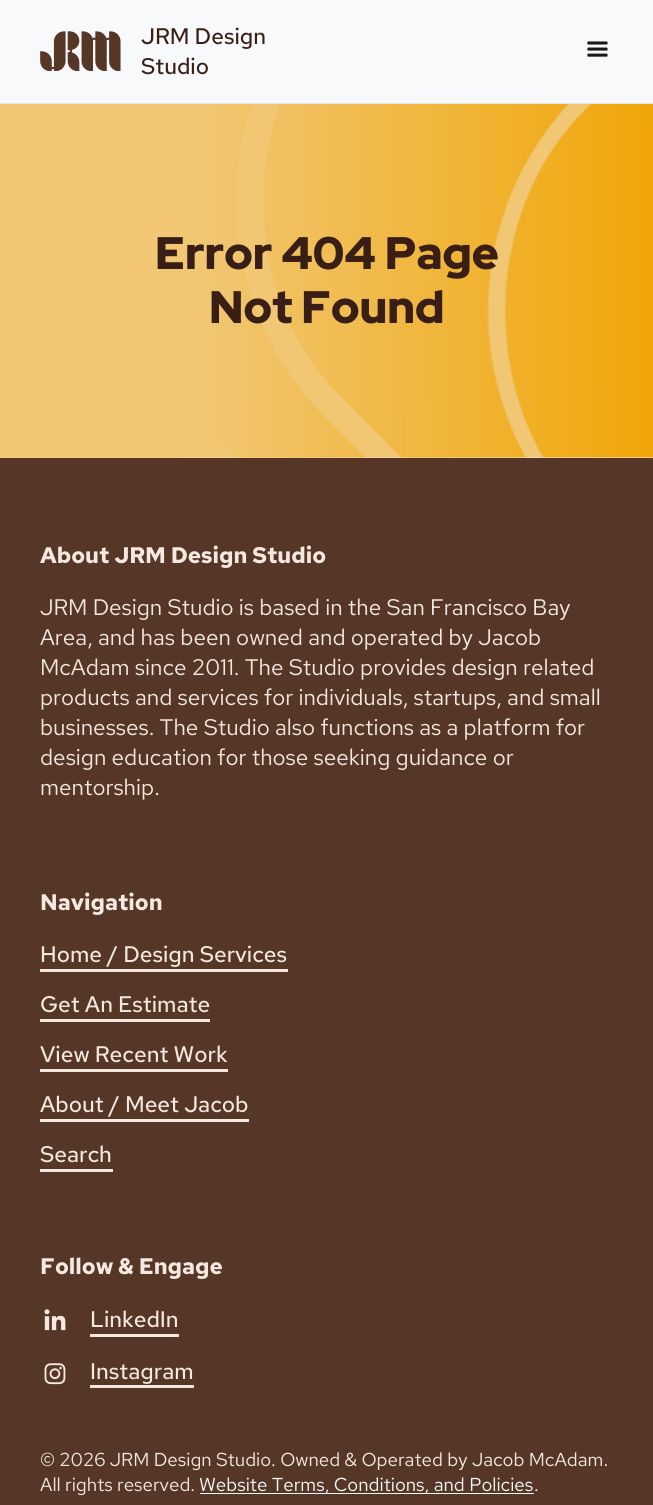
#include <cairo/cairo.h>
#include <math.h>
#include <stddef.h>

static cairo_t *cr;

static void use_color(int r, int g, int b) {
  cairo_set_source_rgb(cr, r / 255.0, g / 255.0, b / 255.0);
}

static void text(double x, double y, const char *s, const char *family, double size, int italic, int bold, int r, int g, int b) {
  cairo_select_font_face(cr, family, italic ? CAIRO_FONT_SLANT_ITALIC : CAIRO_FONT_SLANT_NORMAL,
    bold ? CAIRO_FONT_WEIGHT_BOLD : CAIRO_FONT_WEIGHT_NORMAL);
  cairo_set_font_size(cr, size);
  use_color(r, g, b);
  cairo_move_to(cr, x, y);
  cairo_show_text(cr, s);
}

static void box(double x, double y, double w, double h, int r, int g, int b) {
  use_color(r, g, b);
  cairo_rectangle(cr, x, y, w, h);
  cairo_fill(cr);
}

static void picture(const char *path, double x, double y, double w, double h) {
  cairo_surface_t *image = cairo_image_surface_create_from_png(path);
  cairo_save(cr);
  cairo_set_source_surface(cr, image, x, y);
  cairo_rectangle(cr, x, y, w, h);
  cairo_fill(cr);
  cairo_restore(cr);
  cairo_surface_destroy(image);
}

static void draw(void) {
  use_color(240, 241, 244);
  cairo_paint(cr);
  box(0, 0, 653, 103, 247, 249, 251);
  box(0, 103, 653, 1, 230, 231, 234);
  picture("img_01.png", 40, 31, 81, 40);
  picture("img_02.png", 587, 41, 21, 16);
  picture("img_03.png", 0, 104, 653, 354);
  box(0, 458, 653, 1047, 86, 55, 39);
  box(40, 969, 248, 3, 244, 232, 224);
  box(40, 1019, 170, 3, 244, 232, 224);
  box(40, 1069, 188, 3, 244, 232, 224);
  box(40, 1119, 209, 3, 244, 232, 224);
  box(40, 1169, 73, 3, 244, 232, 224);
  picture("img_04.png", 44, 1309, 22, 22);
  box(90, 1334, 89, 3, 244, 232, 224);
  picture("img_05.png", 44, 1363, 22, 22);
  box(90, 1385, 104, 3, 244, 232, 224);
  box(200, 1493, 334, 1, 247, 249, 251);
  text(141, 44, "JRM Design", "Red Hat Text Medium", 22.5, 0, 0, 56, 30, 21);
  text(141, 74, "Studio", "Red Hat Text Medium", 22.5, 0, 0, 56, 30, 21);
  text(155, 269, "Error 404 Page", "Red Hat Display Black", 45.5, 0, 0, 56, 30, 21);
  text(209, 323, "Not Found", "Red Hat Display Black", 45.5, 0, 0, 56, 30, 21);
  text(40, 563, "About JRM Design Studio", "Red Hat Text", 22.5, 0, 1, 244, 232, 224);
  text(40, 615, "JRM Design Studio is based in the San Francisco Bay", "Red Hat Text", 22.5, 0, 0, 244, 232, 224);
  text(40, 645, "Area, and has been owned and operated by Jacob", "Red Hat Text", 22.5, 0, 0, 244, 232, 224);
  text(40, 675, "McAdam since 2011. The Studio provides design related", "Red Hat Text", 22.5, 0, 0, 244, 232, 224);
  text(40, 705, "products and services for individuals, startups, and small", "Red Hat Text", 22.5, 0, 0, 244, 232, 224);
  text(40, 735, "businesses. The Studio also functions as a platform for", "Red Hat Text", 22.5, 0, 0, 244, 232, 224);
  text(40, 765, "design education for those seeking guidance or", "Red Hat Text", 22.5, 0, 0, 244, 232, 224);
  text(40, 795, "mentorship.", "Red Hat Text", 22.5, 0, 0, 244, 232, 224);
  text(40, 910, "Navigation", "Red Hat Text", 22.5, 0, 1, 244, 232, 224);
  text(40, 962, "Home / Design Services", "Red Hat Text Medium", 22.5, 0, 0, 244, 232, 224);
  text(40, 1012, "Get An Estimate", "Red Hat Text Medium", 22.5, 0, 0, 244, 232, 224);
  text(40, 1062, "View Recent Work", "Red Hat Text Medium", 22.5, 0, 0, 244, 232, 224);
  text(40, 1112, "About / Meet Jacob", "Red Hat Text Medium", 22.5, 0, 0, 244, 232, 224);
  text(40, 1162, "Search", "Red Hat Text Medium", 22.5, 0, 0, 244, 232, 224);
  text(40, 1274, "Follow & Engage", "Red Hat Text", 22.5, 0, 1, 244, 232, 224);
  text(90, 1327, "LinkedIn", "Red Hat Text Medium", 22.5, 0, 0, 244, 232, 224);
  text(90, 1379, "Instagram", "Red Hat Text Medium", 22.5, 0, 0, 244, 232, 224);
  text(40, 1466, "© 2026 JRM Design Studio. Owned & Operated by Jacob McAdam.", "Red Hat Text", 18.75, 0, 0, 244, 232, 224);
  text(40, 1491, "All rights reserved.", "Red Hat Text", 18.75, 0, 0, 244, 232, 224);
  text(199, 1491, "Website Terms, Conditions, and Policies", "Red Hat Text", 18.75, 0, 0, 247, 249, 251);
  text(534, 1491, ".", "Red Hat Text", 18.75, 0, 0, 244, 232, 224);
}

int main(void) {
  cairo_surface_t *surface = cairo_image_surface_create(CAIRO_FORMAT_RGB24, 653, 1505);
  cr = cairo_create(surface);
  cairo_font_options_t *options = cairo_font_options_create();
  cairo_font_options_set_hint_metrics(options, CAIRO_HINT_METRICS_OFF);
  cairo_font_options_set_hint_style(options, CAIRO_HINT_STYLE_NONE);
  cairo_set_font_options(cr, options);
  cairo_set_miter_limit(cr, 4);
  draw();
  cairo_surface_write_to_png(surface, "out.png");
  cairo_font_options_destroy(options);
  cairo_destroy(cr);
  cairo_surface_destroy(surface);
  return 0;
}
